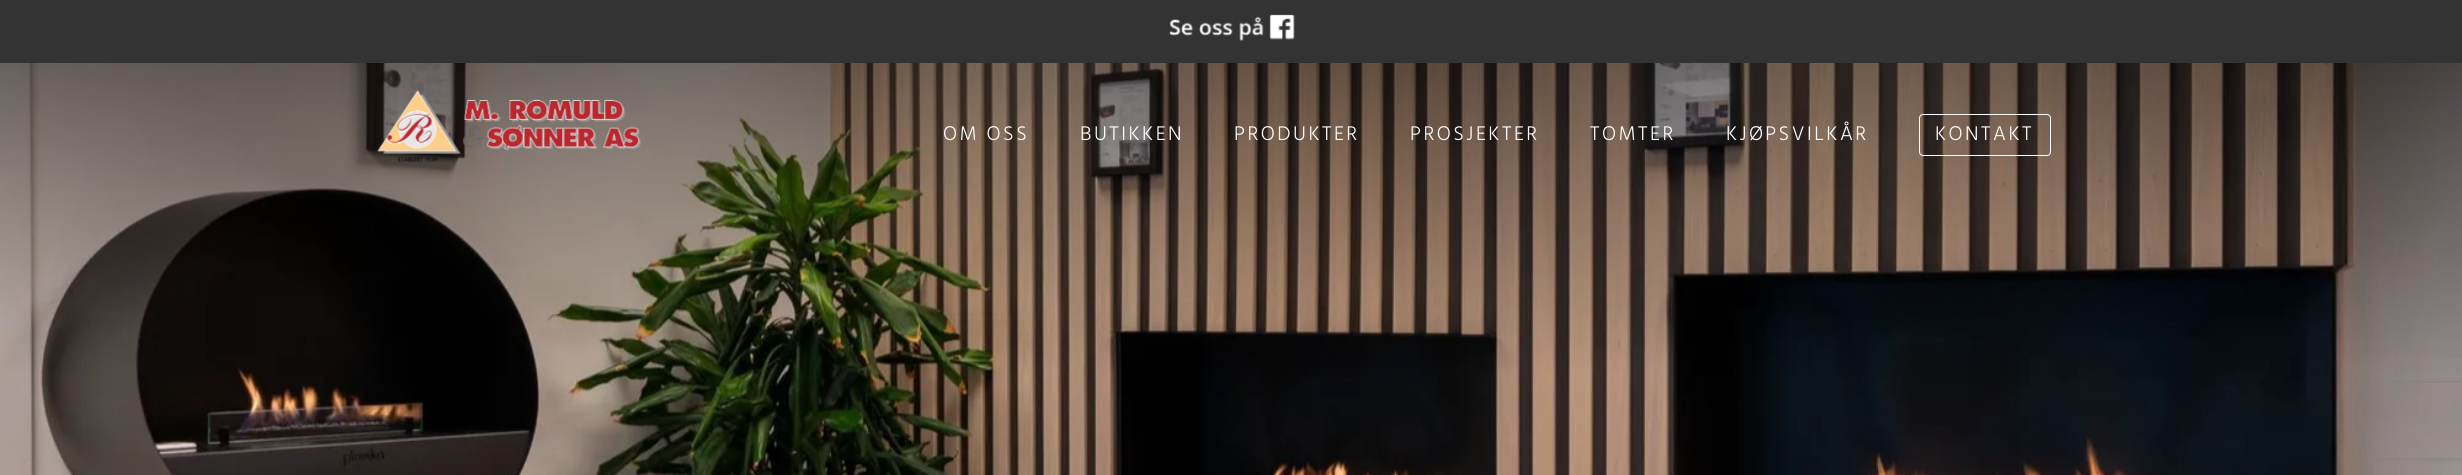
#include <cairo/cairo.h>
#include <math.h>
#include <stddef.h>

static cairo_t *cr;

static void use_color(int r, int g, int b) {
  cairo_set_source_rgb(cr, r / 255.0, g / 255.0, b / 255.0);
}

static void spaced_text(double x, double y, const char *s, double letter, double word) {
  cairo_move_to(cr, x, y);
  while (*s) {
    char ch[5] = {0};
    int n = 0;
    do ch[n++] = *s++; while ((*s & 0xC0) == 0x80);
    cairo_show_text(cr, ch);
    cairo_rel_move_to(cr, letter + word * (*ch == ' '), 0);
  }
}

static void box(double x, double y, double w, double h, int r, int g, int b) {
  use_color(r, g, b);
  cairo_rectangle(cr, x, y, w, h);
  cairo_fill(cr);
}

static void round_rect(double x, double y, double w, double h, double r) {
  cairo_new_sub_path(cr);
  cairo_arc(cr, x + w - r, y + h - r, r, 0, M_PI / 2);
  cairo_arc(cr, x + r, y + h - r, r, M_PI / 2, M_PI);
  cairo_arc(cr, x + r, y + r, r, M_PI, 1.5 * M_PI);
  cairo_arc(cr, x + w - r, y + r, r, 1.5 * M_PI, 2 * M_PI);
  cairo_close_path(cr);
}

static void shadow(double x, double y, double w, double h, double r, double blur, double alpha) {
  cairo_push_group_with_content(cr, CAIRO_CONTENT_ALPHA);
  cairo_set_operator(cr, CAIRO_OPERATOR_SOURCE);
  for (int i = 15; i >= -15 && fmin(w, h) + blur * i / 3 > 0; i -= 2) {
    double e = blur * i / 6;
    cairo_set_source_rgba(cr, 0, 0, 0, alpha * erfc((i - 1) / 8.5) / 2);
    round_rect(x - e, y - e, w + 2 * e, h + 2 * e, fmax(0, fmin(r + e + blur * .6, fmin(w, h) / 2 + e)));
    cairo_fill(cr);
  }
  cairo_pattern_t *soft = cairo_pop_group(cr);
  cairo_mask(cr, soft);
  cairo_pattern_destroy(soft);
}

static void picture(const char *path, double x, double y, double w, double h) {
  cairo_surface_t *image = cairo_image_surface_create_from_png(path);
  cairo_save(cr);
  cairo_set_source_surface(cr, image, x, y);
  cairo_rectangle(cr, x, y, w, h);
  cairo_fill(cr);
  cairo_restore(cr);
  cairo_surface_destroy(image);
}

static void draw(void) {
  use_color(255, 255, 255);
  cairo_paint(cr);
  box(0, 0, 2462, 63, 51, 51, 51);
  picture("img_01.png", 1169, 14, 126, 27);
  picture("img_02.png", 0, 63, 2462, 412);
  picture("img_03.png", 377, 90, 264, 72);
  round_rect(1919.5, 114.5, 131, 41, 3.5);
  use_color(255, 255, 255);
  cairo_set_line_width(cr, 1);
  cairo_stroke(cr);
  cairo_save(cr);
  cairo_set_fill_rule(cr, CAIRO_FILL_RULE_EVEN_ODD);
  cairo_new_path(cr);
  cairo_move_to(cr, 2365, 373);
  cairo_line_to(cr, 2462, 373);
  cairo_line_to(cr, 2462, 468);
  cairo_line_to(cr, 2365, 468);
  cairo_close_path(cr);
  cairo_move_to(cr, 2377.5, 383);
  cairo_line_to(cr, 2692.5, 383);
  cairo_curve_to(cr, 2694, 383, 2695, 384, 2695, 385.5);
  cairo_line_to(cr, 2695, 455.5);
  cairo_curve_to(cr, 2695, 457, 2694, 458, 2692.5, 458);
  cairo_line_to(cr, 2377.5, 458);
  cairo_curve_to(cr, 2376, 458, 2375, 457, 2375, 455.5);
  cairo_line_to(cr, 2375, 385.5);
  cairo_curve_to(cr, 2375, 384, 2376, 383, 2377.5, 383);
  cairo_close_path(cr);
  cairo_clip(cr);
  use_color(128, 128, 128);
  shadow(2375, 383, 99, 75, 2.5, 3, 1);
  cairo_restore(cr);
  cairo_select_font_face(cr, "Hind Light", CAIRO_FONT_SLANT_NORMAL, CAIRO_FONT_WEIGHT_NORMAL);
  cairo_set_font_size(cr, 20.25);
  spaced_text(943, 140, "OM OSS", 2.5, 0);
  spaced_text(1080, 140, "BUTIKKEN", 2.5, 0);
  spaced_text(1234, 140, "PRODUKTER", 2.5, 0);
  spaced_text(1410, 140, "PROSJEKTER", 2.5, 0);
  spaced_text(1590, 140, "TOMTER", 2.5, 0);
  spaced_text(1726, 140, "KJØPSVILKÅR", 2.5, 0);
  spaced_text(1935, 140, "KONTAKT", 2.5, 0);
}

int main(void) {
  cairo_surface_t *surface = cairo_image_surface_create(CAIRO_FORMAT_RGB24, 2462, 475);
  cr = cairo_create(surface);
  cairo_font_options_t *options = cairo_font_options_create();
  cairo_font_options_set_hint_metrics(options, CAIRO_HINT_METRICS_OFF);
  cairo_font_options_set_hint_style(options, CAIRO_HINT_STYLE_NONE);
  cairo_set_font_options(cr, options);
  cairo_set_miter_limit(cr, 4);
  draw();
  cairo_surface_write_to_png(surface, "out.png");
  cairo_font_options_destroy(options);
  cairo_destroy(cr);
  cairo_surface_destroy(surface);
  return 0;
}
